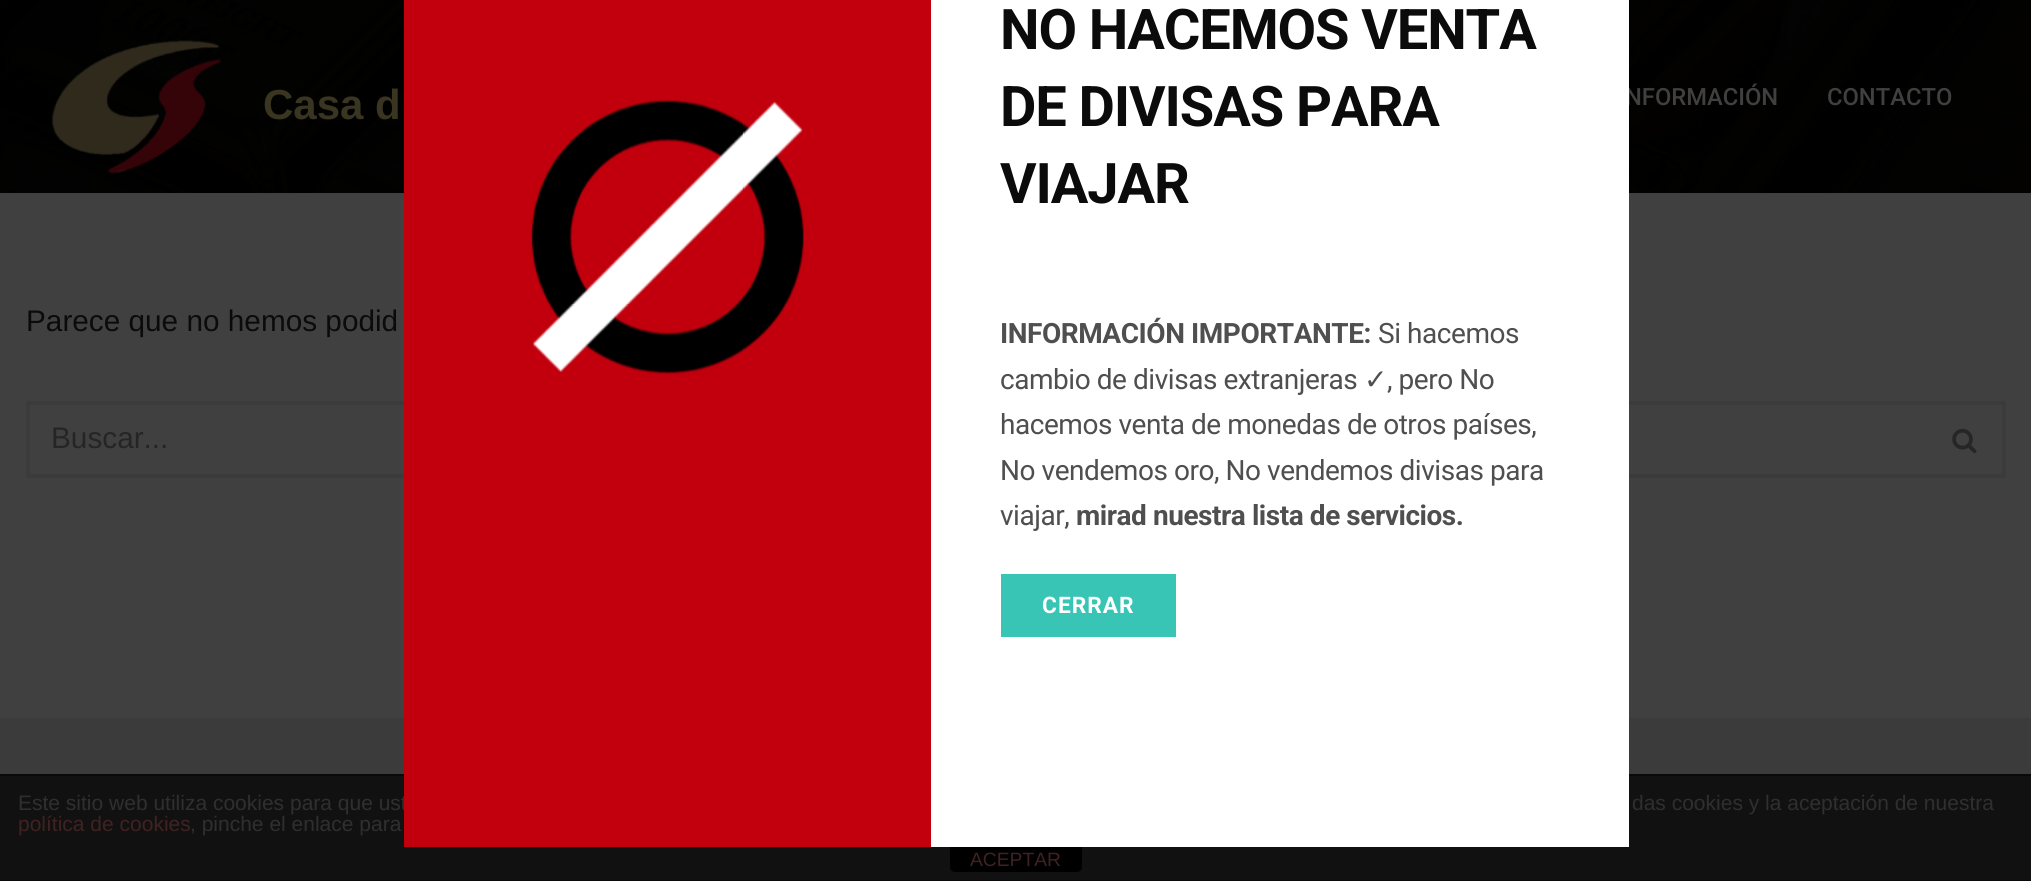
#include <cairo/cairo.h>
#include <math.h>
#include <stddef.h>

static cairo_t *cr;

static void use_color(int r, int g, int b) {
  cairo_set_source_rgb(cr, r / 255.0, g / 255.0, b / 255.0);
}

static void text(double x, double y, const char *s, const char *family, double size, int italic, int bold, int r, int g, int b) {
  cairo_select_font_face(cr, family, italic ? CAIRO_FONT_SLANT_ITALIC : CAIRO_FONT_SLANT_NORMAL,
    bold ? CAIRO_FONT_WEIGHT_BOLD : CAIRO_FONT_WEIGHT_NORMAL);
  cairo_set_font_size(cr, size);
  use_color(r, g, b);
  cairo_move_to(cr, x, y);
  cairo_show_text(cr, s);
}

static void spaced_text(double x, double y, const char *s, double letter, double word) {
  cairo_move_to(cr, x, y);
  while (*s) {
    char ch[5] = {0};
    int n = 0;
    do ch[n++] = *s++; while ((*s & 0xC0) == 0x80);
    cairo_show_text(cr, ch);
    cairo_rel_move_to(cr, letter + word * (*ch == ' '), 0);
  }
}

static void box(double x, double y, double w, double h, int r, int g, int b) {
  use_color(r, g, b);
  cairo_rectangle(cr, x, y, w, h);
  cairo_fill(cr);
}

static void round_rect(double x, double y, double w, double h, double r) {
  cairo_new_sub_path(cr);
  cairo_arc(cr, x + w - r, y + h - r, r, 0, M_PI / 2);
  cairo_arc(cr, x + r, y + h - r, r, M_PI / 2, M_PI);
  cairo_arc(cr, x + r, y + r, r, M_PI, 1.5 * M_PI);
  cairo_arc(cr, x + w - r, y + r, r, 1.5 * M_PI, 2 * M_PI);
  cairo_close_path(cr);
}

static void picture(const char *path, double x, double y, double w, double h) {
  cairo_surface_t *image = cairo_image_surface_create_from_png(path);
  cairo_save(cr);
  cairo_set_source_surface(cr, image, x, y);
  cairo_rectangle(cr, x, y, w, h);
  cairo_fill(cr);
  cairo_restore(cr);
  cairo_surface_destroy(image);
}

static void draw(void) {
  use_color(64, 64, 64);
  cairo_paint(cr);
  picture("img_02.png", 0, 0, 2031, 193);
  cairo_set_source_rgba(cr, 0, 0, 0, 0.96);
  cairo_rectangle(cr, 0, 0, 2031, 193);
  cairo_fill(cr);
  picture("img_03.png", 51, 40, 171, 134);
  box(26, 401, 1980, 4, 59, 59, 59);
  box(26, 474, 1901, 4, 59, 59, 59);
  box(26, 401, 4, 77, 59, 59, 59);
  box(2002, 401, 4, 77, 59, 59, 59);
  box(1927, 474, 79, 4, 59, 59, 59);
  picture("img_04.png", 1952, 428, 25, 25);
  box(0, 718, 2031, 56, 59, 59, 59);
  box(0, 776, 2031, 104, 17, 17, 17);
  box(0, 774, 2031, 2, 9, 9, 9);
  box(0, 880, 2031, 1, 9, 9, 9);
  use_color(0, 0, 0);
  round_rect(950, 844, 132, 28, 5);
  cairo_fill(cr);
  text(263, 119, "Casa d", "Liberation Sans", 42, 0, 1, 57, 53, 33);
  text(1625, 105, "NFORMACIÓN", "Roboto Medium", 23.75, 0, 0, 64, 64, 64);
  box(931, 0, 698, 847, 255, 255, 255);
  box(1001, 574, 175, 63, 56, 197, 181);
  cairo_select_font_face(cr, "Roboto", CAIRO_FONT_SLANT_NORMAL, CAIRO_FONT_WEIGHT_BOLD);
  cairo_set_font_size(cr, 22.75);
  use_color(255, 255, 255);
  spaced_text(1042, 613, "CERRAR", 1, 0);
  cairo_set_font_size(cr, 28);
  use_color(79, 79, 79);
  spaced_text(1076, 525, "mirad nuestra lista de servicios.", -0.45, 0);
  cairo_select_font_face(cr, "Roboto", CAIRO_FONT_SLANT_NORMAL, CAIRO_FONT_WEIGHT_NORMAL);
  spaced_text(1000, 525, "viajar,", -0.45, 0);
  spaced_text(1000, 480, "No vendemos oro, No vendemos divisas para", -0.45, 0);
  spaced_text(1000, 434, "hacemos venta de monedas de otros países,", -0.45, 0);
  spaced_text(1387, 389, ", pero No", -0.45, 0);
  cairo_select_font_face(cr, "DejaVu Sans", CAIRO_FONT_SLANT_NORMAL, CAIRO_FONT_WEIGHT_NORMAL);
  spaced_text(1364, 389, "✓", -0.45, 0);
  cairo_select_font_face(cr, "Roboto", CAIRO_FONT_SLANT_NORMAL, CAIRO_FONT_WEIGHT_NORMAL);
  spaced_text(1000, 389, "cambio de divisas extranjeras", -0.45, 0);
  spaced_text(1378, 343, "Si hacemos", -0.45, 0);
  cairo_select_font_face(cr, "Roboto", CAIRO_FONT_SLANT_NORMAL, CAIRO_FONT_WEIGHT_BOLD);
  spaced_text(1000, 343, "INFORMACIÓN IMPORTANTE:", -0.45, 0);
  cairo_set_font_size(cr, 56);
  use_color(11, 11, 11);
  spaced_text(1000, 203, "VIAJAR", -1.1, 0);
  spaced_text(1000, 126, "DE DIVISAS PARA", -1.1, 0);
  spaced_text(1000, 49, "NO HACEMOS VENTA", -1.1, 0);
  text(1827, 105, "CONTACTO", "Roboto Medium", 23.75, 0, 0, 64, 64, 64);
  text(26, 331, "Parece que no hemos podid", "Liberation Sans", 29.75, 0, 0, 11, 11, 11);
  text(51, 448, "Buscar...", "Liberation Sans", 29.75, 0, 0, 37, 37, 37);
  text(18, 810, "Este sitio web utiliza cookies para que ust", "Liberation Sans", 21, 0, 0, 47, 47, 47);
  box(404, 0, 527, 847, 194, 0, 13);
  picture("img_01.png", 531, 100, 273, 274);
  text(1632, 810, "das cookies y la aceptación de nuestra", "Liberation Sans", 21, 0, 0, 47, 47, 47);
  text(18, 831, "política de cookies", "Liberation Sans", 21, 0, 0, 64, 34, 34);
  text(190, 831, ", pinche el enlace para", "Liberation Sans", 21, 0, 0, 47, 47, 47);
  text(970, 866, "ACEPTAR", "Liberation Sans", 19.25, 0, 0, 64, 34, 34);
}

int main(void) {
  cairo_surface_t *surface = cairo_image_surface_create(CAIRO_FORMAT_RGB24, 2031, 881);
  cr = cairo_create(surface);
  cairo_font_options_t *options = cairo_font_options_create();
  cairo_font_options_set_hint_metrics(options, CAIRO_HINT_METRICS_OFF);
  cairo_font_options_set_hint_style(options, CAIRO_HINT_STYLE_NONE);
  cairo_set_font_options(cr, options);
  cairo_set_miter_limit(cr, 4);
  draw();
  cairo_surface_write_to_png(surface, "out.png");
  cairo_font_options_destroy(options);
  cairo_destroy(cr);
  cairo_surface_destroy(surface);
  return 0;
}
